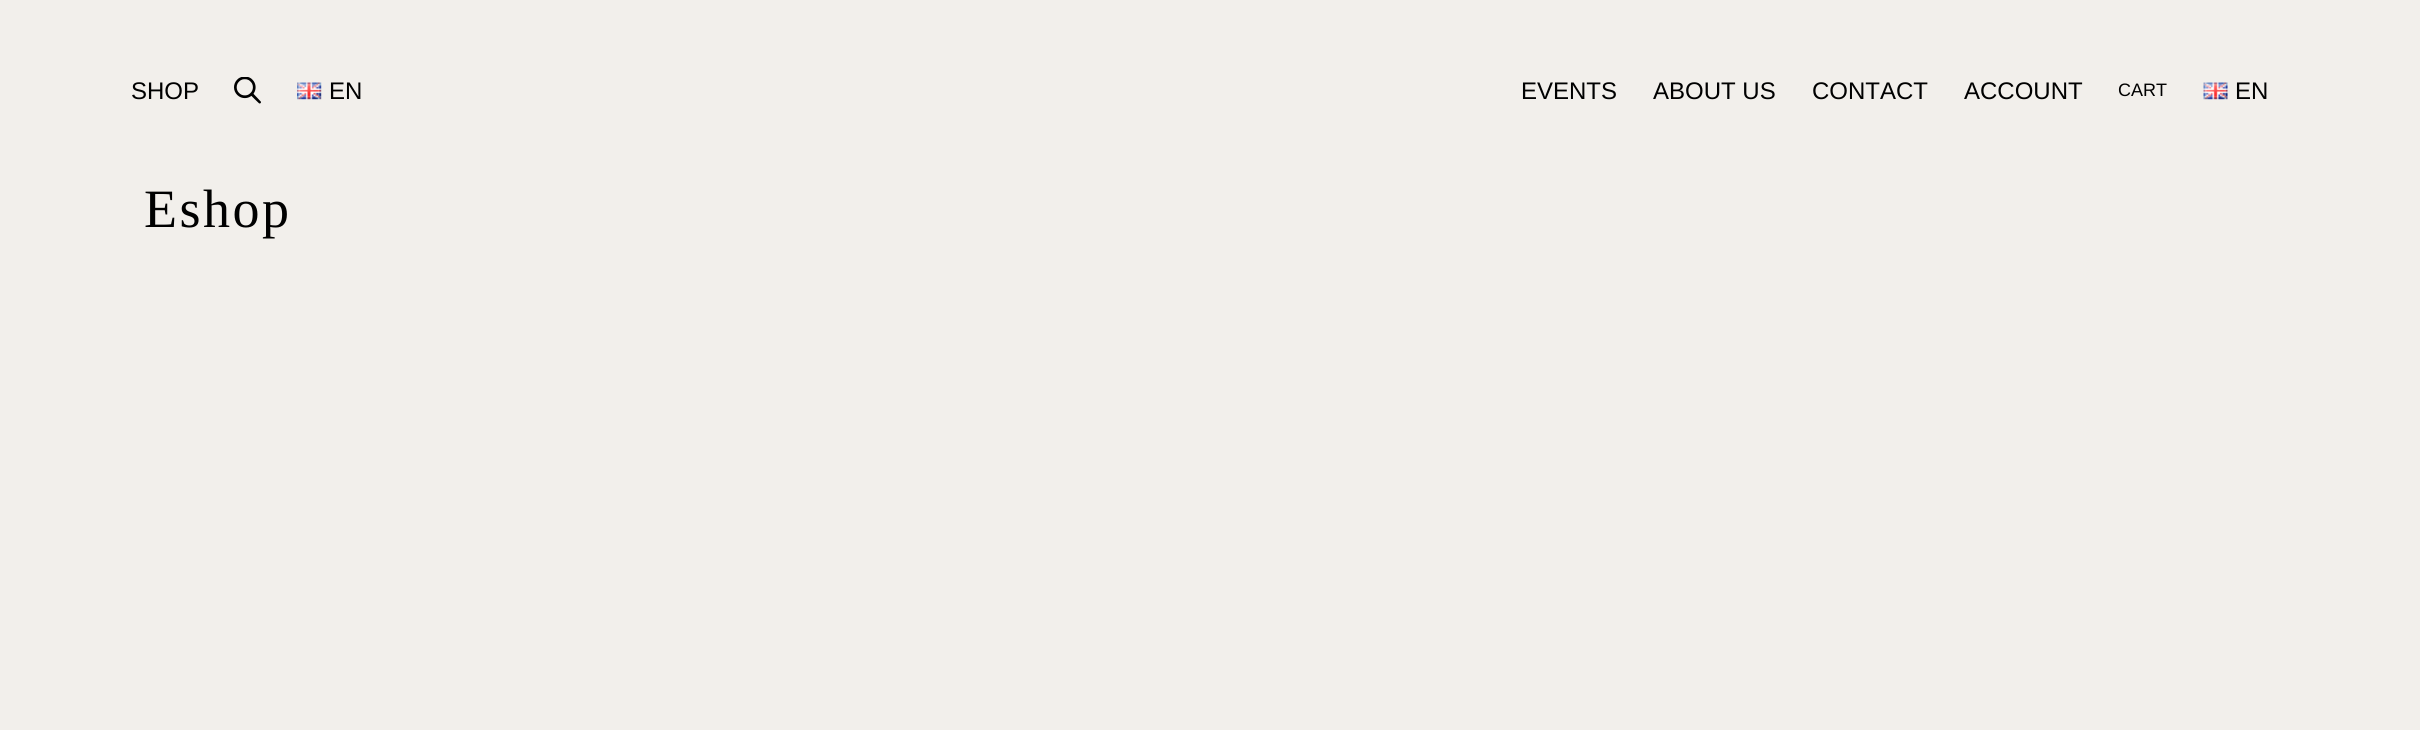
#include <cairo/cairo.h>
#include <math.h>
#include <stddef.h>

static cairo_t *cr;

static void use_color(int r, int g, int b) {
  cairo_set_source_rgb(cr, r / 255.0, g / 255.0, b / 255.0);
}

static void text(double x, double y, const char *s, const char *family, double size, int italic, int bold, int r, int g, int b) {
  cairo_select_font_face(cr, family, italic ? CAIRO_FONT_SLANT_ITALIC : CAIRO_FONT_SLANT_NORMAL,
    bold ? CAIRO_FONT_WEIGHT_BOLD : CAIRO_FONT_WEIGHT_NORMAL);
  cairo_set_font_size(cr, size);
  use_color(r, g, b);
  cairo_move_to(cr, x, y);
  cairo_show_text(cr, s);
}

static void spaced_text(double x, double y, const char *s, double letter, double word) {
  cairo_move_to(cr, x, y);
  while (*s) {
    char ch[5] = {0};
    int n = 0;
    do ch[n++] = *s++; while ((*s & 0xC0) == 0x80);
    cairo_show_text(cr, ch);
    cairo_rel_move_to(cr, letter + word * (*ch == ' '), 0);
  }
}

static void picture(const char *path, double x, double y, double w, double h) {
  cairo_surface_t *image = cairo_image_surface_create_from_png(path);
  cairo_save(cr);
  cairo_set_source_surface(cr, image, x, y);
  cairo_rectangle(cr, x, y, w, h);
  cairo_fill(cr);
  cairo_restore(cr);
  cairo_surface_destroy(image);
}

static void draw(void) {
  use_color(242, 239, 235);
  cairo_paint(cr);
  picture("img_01.png", 234, 77, 27, 27);
  picture("img_02.png", 297, 82, 25, 18);
  picture("img_03.png", 2203, 82, 25, 18);
  text(131, 99, "SHOP", "Liberation Sans", 24, 0, 0, 0, 0, 0);
  text(329, 99, "EN", "Liberation Sans", 24, 0, 0, 0, 0, 0);
  text(1521, 99, "EVENTS", "Liberation Sans", 24, 0, 0, 0, 0, 0);
  text(1653, 99, "ABOUT US", "Liberation Sans", 24, 0, 0, 0, 0, 0);
  text(1812, 99, "CONTACT", "Liberation Sans", 24, 0, 0, 0, 0, 0);
  text(1964, 99, "ACCOUNT", "Liberation Sans", 24, 0, 0, 0, 0, 0);
  text(2118, 96, "CART", "Liberation Sans", 18, 0, 0, 0, 0, 0);
  text(2235, 99, "EN", "Liberation Sans", 24, 0, 0, 0, 0, 0);
  cairo_select_font_face(cr, "Liberation Serif", CAIRO_FONT_SLANT_NORMAL, CAIRO_FONT_WEIGHT_NORMAL);
  cairo_set_font_size(cr, 54);
  spaced_text(144, 227, "Eshop", 2.5, 0);
}

int main(void) {
  cairo_surface_t *surface = cairo_image_surface_create(CAIRO_FORMAT_RGB24, 2420, 730);
  cr = cairo_create(surface);
  cairo_font_options_t *options = cairo_font_options_create();
  cairo_font_options_set_hint_metrics(options, CAIRO_HINT_METRICS_OFF);
  cairo_font_options_set_hint_style(options, CAIRO_HINT_STYLE_NONE);
  cairo_set_font_options(cr, options);
  cairo_set_miter_limit(cr, 4);
  draw();
  cairo_surface_write_to_png(surface, "out.png");
  cairo_font_options_destroy(options);
  cairo_destroy(cr);
  cairo_surface_destroy(surface);
  return 0;
}
